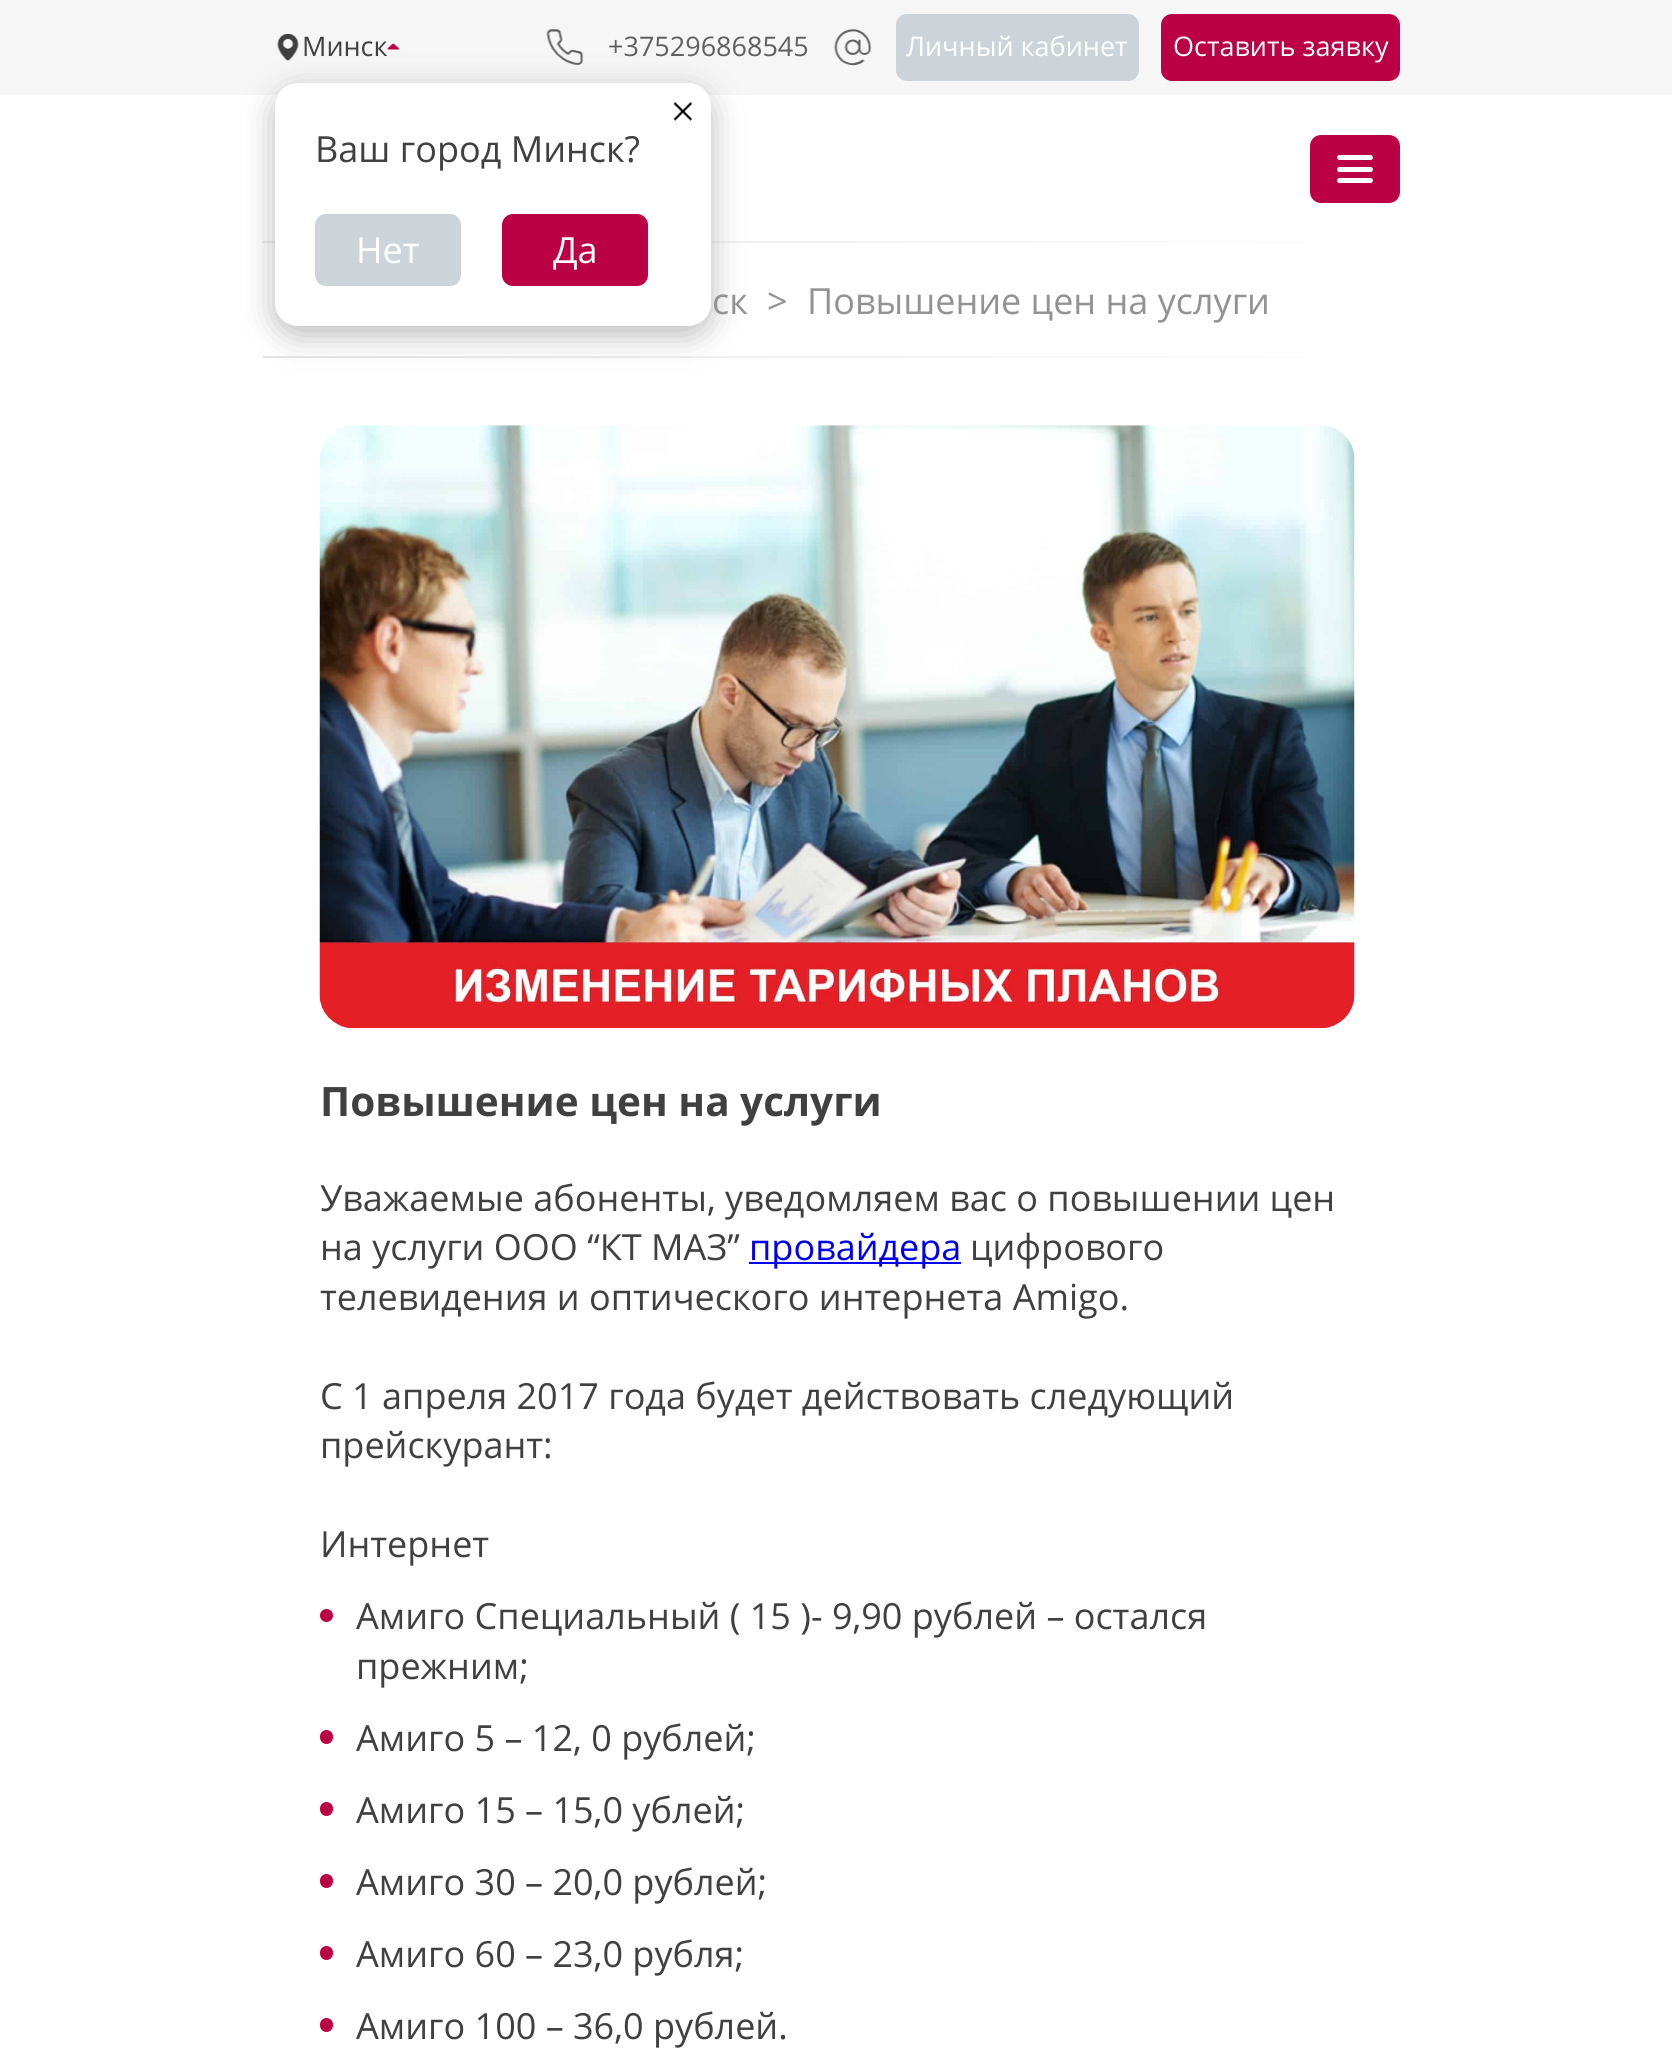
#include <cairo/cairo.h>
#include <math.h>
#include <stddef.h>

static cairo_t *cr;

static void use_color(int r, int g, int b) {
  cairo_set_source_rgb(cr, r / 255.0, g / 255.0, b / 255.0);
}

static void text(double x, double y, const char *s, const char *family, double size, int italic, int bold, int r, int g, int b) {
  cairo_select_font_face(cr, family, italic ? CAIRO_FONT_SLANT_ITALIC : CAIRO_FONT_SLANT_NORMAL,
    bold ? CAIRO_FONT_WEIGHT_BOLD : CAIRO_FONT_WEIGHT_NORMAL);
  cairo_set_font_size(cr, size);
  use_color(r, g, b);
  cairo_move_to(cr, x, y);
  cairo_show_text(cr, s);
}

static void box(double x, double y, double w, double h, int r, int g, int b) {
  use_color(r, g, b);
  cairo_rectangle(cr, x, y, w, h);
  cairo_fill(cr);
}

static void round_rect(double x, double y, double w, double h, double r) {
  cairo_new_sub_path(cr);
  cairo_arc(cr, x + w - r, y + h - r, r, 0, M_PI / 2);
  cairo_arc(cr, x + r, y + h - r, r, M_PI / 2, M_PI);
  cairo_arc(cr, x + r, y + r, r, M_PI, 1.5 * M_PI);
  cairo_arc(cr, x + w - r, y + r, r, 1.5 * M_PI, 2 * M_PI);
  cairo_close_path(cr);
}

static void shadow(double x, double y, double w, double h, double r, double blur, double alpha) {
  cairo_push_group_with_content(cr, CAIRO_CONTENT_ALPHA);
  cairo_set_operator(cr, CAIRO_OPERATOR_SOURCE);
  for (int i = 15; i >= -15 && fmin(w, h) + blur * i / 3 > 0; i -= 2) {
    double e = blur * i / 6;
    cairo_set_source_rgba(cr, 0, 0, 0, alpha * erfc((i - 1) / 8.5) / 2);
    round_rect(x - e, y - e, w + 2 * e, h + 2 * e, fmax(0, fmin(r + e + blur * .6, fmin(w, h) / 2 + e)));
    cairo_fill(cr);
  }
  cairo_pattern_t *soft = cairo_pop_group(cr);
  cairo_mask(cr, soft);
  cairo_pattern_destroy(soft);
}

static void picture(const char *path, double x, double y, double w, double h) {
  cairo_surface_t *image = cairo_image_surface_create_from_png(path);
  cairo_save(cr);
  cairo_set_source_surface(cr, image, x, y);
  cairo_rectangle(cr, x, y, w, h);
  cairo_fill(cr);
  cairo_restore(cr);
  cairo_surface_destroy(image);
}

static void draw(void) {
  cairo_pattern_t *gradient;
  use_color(255, 255, 255);
  cairo_paint(cr);
  box(0, 0, 1672, 95, 246, 246, 246);
  picture("img_01.png", 277, 34, 22, 27);
  picture("img_02.png", 387, 43, 13, 7);
  picture("img_04.png", 546, 29, 38, 36);
  gradient = cairo_pattern_create_linear(263, 242, 1411, 242);
  cairo_pattern_add_color_stop_rgba(gradient, 0, 0.898, 0.898, 0.898, 1);
  cairo_pattern_add_color_stop_rgba(gradient, 1, 1, 1, 1, 1);
  cairo_set_source(cr, gradient);
  cairo_pattern_destroy(gradient);
  cairo_rectangle(cr, 263, 241, 1038, 2);
  cairo_fill(cr);
  gradient = cairo_pattern_create_linear(263, 357, 1411, 357);
  cairo_pattern_add_color_stop_rgba(gradient, 0, 0.898, 0.898, 0.898, 1);
  cairo_pattern_add_color_stop_rgba(gradient, 1, 1, 1, 1, 1);
  cairo_set_source(cr, gradient);
  cairo_pattern_destroy(gradient);
  cairo_rectangle(cr, 263, 356, 1038, 2);
  cairo_fill(cr);
  use_color(185, 185, 185);
  shadow(275, 92, 436, 243, 23, 16, 1);
  use_color(255, 255, 255);
  round_rect(275, 83, 436, 243, 23);
  cairo_fill(cr);
  picture("img_03.png", 673, 101, 19, 20);
  use_color(205, 212, 217);
  round_rect(315, 214, 146, 72, 11);
  cairo_fill(cr);
  use_color(187, 0, 68);
  round_rect(502, 214, 146, 72, 11);
  cairo_fill(cr);
  picture("img_05.png", 834, 29, 38, 37);
  use_color(205, 212, 217);
  round_rect(896, 14, 243, 67, 11);
  cairo_fill(cr);
  use_color(187, 0, 68);
  round_rect(1161, 14, 239, 67, 11);
  cairo_fill(cr);
  round_rect(1310, 135, 90, 68, 11);
  cairo_fill(cr);
  use_color(255, 255, 255);
  round_rect(1337, 155, 36, 5, 2.5);
  cairo_fill(cr);
  round_rect(1337, 167, 36, 5, 2.5);
  cairo_fill(cr);
  round_rect(1337, 178, 36, 5, 2.5);
  cairo_fill(cr);
  picture("img_06.png", 319, 425, 1036, 604);
  box(749, 1262, 212, 2, 0, 0, 238);
  use_color(187, 0, 68);
  cairo_arc(cr, 326.5, 1615.5, 6.5, 0, 2 * M_PI);
  cairo_fill(cr);
  round_rect(320, 1730, 13, 14, 6.5);
  cairo_fill(cr);
  round_rect(320, 1802, 13, 14, 6.5);
  cairo_fill(cr);
  round_rect(320, 1874, 13, 14, 6.5);
  cairo_fill(cr);
  round_rect(320, 1946, 13, 14, 6.5);
  cairo_fill(cr);
  round_rect(320, 2018, 13, 14, 6.5);
  cairo_fill(cr);
  text(302, 56, "Минск", "Open Sans", 27, 0, 0, 64, 64, 64);
  text(315, 162, "Ваш город Минск?", "Open Sans", 36, 0, 0, 64, 64, 64);
  text(356, 263, "Нет", "Open Sans", 36, 0, 0, 255, 255, 255);
  text(553, 263, "Да", "Open Sans", 36, 0, 0, 255, 255, 255);
  text(608, 56, "+375296868545", "Open Sans", 27, 0, 0, 96, 96, 96);
  text(906, 56, "Личный кабинет", "Open Sans", 27, 0, 0, 255, 255, 255);
  text(1173, 56, "Оставить заявку", "Open Sans", 27, 0, 0, 255, 255, 255);
  text(712, 314, "ск", "Open Sans", 36, 0, 0, 146, 146, 146);
  text(767, 314, ">", "Open Sans", 36, 0, 0, 146, 146, 146);
  text(807, 314, "Повышение цен на услуги", "Open Sans", 36, 0, 0, 146, 146, 146);
  text(320, 1116, "Повышение цен на услуги", "Open Sans", 40.5, 0, 1, 64, 64, 64);
  text(320, 1211, "Уважаемые абоненты, уведомляем вас о повышении цен", "Open Sans", 36, 0, 0, 64, 64, 64);
  text(320, 1260, "на услуги ООО “КТ МАЗ”", "Open Sans", 36, 0, 0, 64, 64, 64);
  text(749, 1260, "провайдера", "Open Sans", 36, 0, 0, 0, 0, 238);
  text(970, 1260, "цифрового", "Open Sans", 36, 0, 0, 64, 64, 64);
  text(320, 1310, "телевидения и оптического интернета Amigo.", "Open Sans", 36, 0, 0, 64, 64, 64);
  text(320, 1409, "С 1 апреля 2017 года будет действовать следующий", "Open Sans", 36, 0, 0, 64, 64, 64);
  text(320, 1458, "прейскурант:", "Open Sans", 36, 0, 0, 64, 64, 64);
  text(320, 1557, "Интернет", "Open Sans", 36, 0, 0, 64, 64, 64);
  text(356, 1629, "Амиго Специальный ( 15 )- 9,90 рублей – остался", "Open Sans", 36, 0, 0, 64, 64, 64);
  text(356, 1679, "прежним;", "Open Sans", 36, 0, 0, 64, 64, 64);
  text(356, 1751, "Амиго 5 – 12, 0 рублей;", "Open Sans", 36, 0, 0, 64, 64, 64);
  text(356, 1823, "Амиго 15 – 15,0 ублей;", "Open Sans", 36, 0, 0, 64, 64, 64);
  text(356, 1895, "Амиго 30 – 20,0 рублей;", "Open Sans", 36, 0, 0, 64, 64, 64);
  text(356, 1967, "Амиго 60 – 23,0 рубля;", "Open Sans", 36, 0, 0, 64, 64, 64);
  text(356, 2039, "Амиго 100 – 36,0 рублей.", "Open Sans", 36, 0, 0, 64, 64, 64);
}

int main(void) {
  cairo_surface_t *surface = cairo_image_surface_create(CAIRO_FORMAT_RGB24, 1672, 2067);
  cr = cairo_create(surface);
  cairo_font_options_t *options = cairo_font_options_create();
  cairo_font_options_set_hint_metrics(options, CAIRO_HINT_METRICS_OFF);
  cairo_font_options_set_hint_style(options, CAIRO_HINT_STYLE_NONE);
  cairo_set_font_options(cr, options);
  cairo_set_miter_limit(cr, 4);
  draw();
  cairo_surface_write_to_png(surface, "out.png");
  cairo_font_options_destroy(options);
  cairo_destroy(cr);
  cairo_surface_destroy(surface);
  return 0;
}
